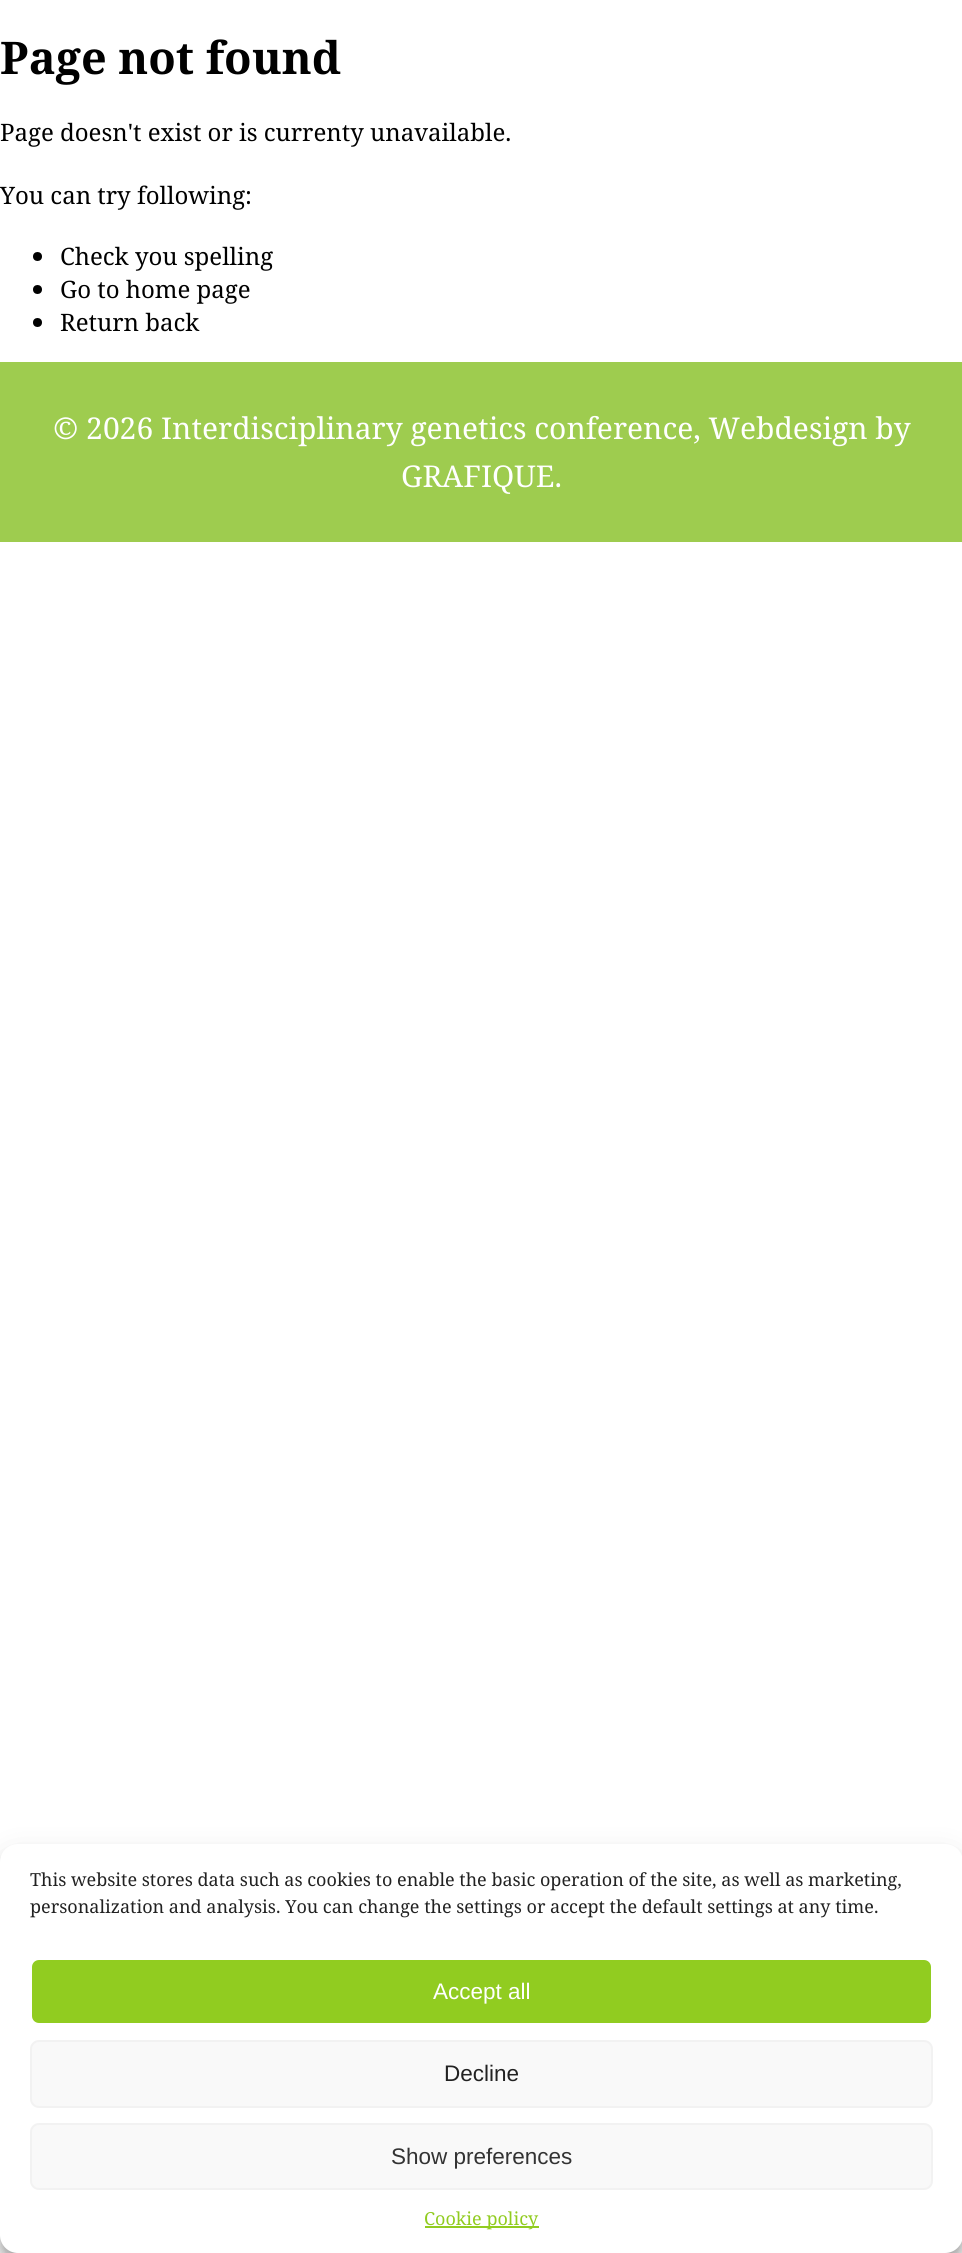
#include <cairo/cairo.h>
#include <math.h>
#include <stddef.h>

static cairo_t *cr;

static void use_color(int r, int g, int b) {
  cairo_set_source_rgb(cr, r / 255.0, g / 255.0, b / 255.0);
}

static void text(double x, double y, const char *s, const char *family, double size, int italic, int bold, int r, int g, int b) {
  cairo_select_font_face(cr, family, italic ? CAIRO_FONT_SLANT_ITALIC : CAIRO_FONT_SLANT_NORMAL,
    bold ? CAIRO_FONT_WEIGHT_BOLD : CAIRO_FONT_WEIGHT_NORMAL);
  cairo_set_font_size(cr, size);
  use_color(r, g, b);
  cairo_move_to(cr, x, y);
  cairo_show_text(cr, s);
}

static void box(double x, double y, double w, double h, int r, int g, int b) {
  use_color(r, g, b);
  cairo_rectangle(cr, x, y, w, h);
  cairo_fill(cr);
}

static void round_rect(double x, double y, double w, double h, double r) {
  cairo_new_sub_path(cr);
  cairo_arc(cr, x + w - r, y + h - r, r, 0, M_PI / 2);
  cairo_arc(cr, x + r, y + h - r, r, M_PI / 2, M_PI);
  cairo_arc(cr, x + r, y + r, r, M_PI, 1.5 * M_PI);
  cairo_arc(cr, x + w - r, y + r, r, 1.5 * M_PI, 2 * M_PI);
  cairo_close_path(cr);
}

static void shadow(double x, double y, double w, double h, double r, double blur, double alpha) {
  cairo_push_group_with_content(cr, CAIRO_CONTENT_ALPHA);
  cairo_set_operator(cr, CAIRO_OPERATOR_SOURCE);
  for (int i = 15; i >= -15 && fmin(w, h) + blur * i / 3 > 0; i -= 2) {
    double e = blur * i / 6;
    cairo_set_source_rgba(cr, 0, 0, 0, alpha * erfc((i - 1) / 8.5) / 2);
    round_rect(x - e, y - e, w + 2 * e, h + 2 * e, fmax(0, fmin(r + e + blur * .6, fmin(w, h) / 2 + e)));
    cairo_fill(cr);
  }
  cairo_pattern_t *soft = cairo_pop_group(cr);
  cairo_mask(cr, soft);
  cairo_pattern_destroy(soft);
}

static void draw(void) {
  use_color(255, 255, 255);
  cairo_paint(cr);
  use_color(0, 0, 0);
  cairo_arc(cr, 37.5, 256.5, 4.5, 0, 2 * M_PI);
  cairo_fill(cr);
  cairo_arc(cr, 37.5, 289.5, 4.5, 0, 2 * M_PI);
  cairo_fill(cr);
  cairo_arc(cr, 37.5, 322.5, 4.5, 0, 2 * M_PI);
  cairo_fill(cr);
  box(0, 362, 962, 180, 158, 204, 79);
  use_color(0, 0, 0);
  shadow(0, 1853, 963, 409, 18, 4.5, 0.23);
  shadow(0, 1859, 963, 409, 18, 15, 0.19);
  use_color(255, 255, 255);
  round_rect(0, 1844, 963, 409, 18);
  cairo_fill(cr);
  use_color(145, 204, 32);
  round_rect(31, 1959, 901, 65, 8);
  cairo_fill_preserve(cr);
  use_color(255, 255, 255);
  cairo_stroke(cr);
  use_color(249, 249, 249);
  round_rect(31, 2041, 901, 66, 8);
  cairo_fill_preserve(cr);
  use_color(242, 242, 242);
  cairo_stroke(cr);
  use_color(249, 249, 249);
  round_rect(31, 2124, 901, 65, 8);
  cairo_fill_preserve(cr);
  use_color(242, 242, 242);
  cairo_stroke(cr);
  box(425, 2226, 114, 2, 145, 204, 32);
  text(0, 74, "Page not found", "Noto Serif", 45, 0, 1, 0, 0, 0);
  text(0, 141, "Page doesn't exist or is currenty unavailable.", "Noto Serif", 24, 0, 0, 0, 0, 0);
  text(0, 204, "You can try following:", "Noto Serif", 24, 0, 0, 0, 0, 0);
  text(60, 265, "Check you spelling", "Noto Serif", 24, 0, 0, 0, 0, 0);
  text(60, 298, "Go to home page", "Noto Serif", 24, 0, 0, 0, 0, 0);
  text(60, 331, "Return back", "Noto Serif", 24, 0, 0, 0, 0, 0);
  text(53, 439, "© 2026 Interdisciplinary genetics conference, Webdesign by", "Noto Serif", 30, 0, 0, 255, 255, 255);
  text(401, 487, "GRAFIQUE.", "Noto Serif", 30, 0, 0, 255, 255, 255);
  text(30, 1886, "This website stores data such as cookies to enable the basic operation of the site, as well as marketing,", "Noto Serif", 18, 0, 0, 34, 34, 34);
  text(30, 1913, "personalization and analysis. You can change the settings or accept the default settings at any time.", "Noto Serif", 18, 0, 0, 34, 34, 34);
  text(433, 1999, "Accept all", "Liberation Sans", 22.5, 0, 0, 255, 255, 255);
  text(444, 2081, "Decline", "Liberation Sans", 22.5, 0, 0, 34, 34, 34);
  text(391, 2164, "Show preferences", "Liberation Sans", 22.5, 0, 0, 51, 51, 51);
  text(424, 2225, "Cookie policy", "Noto Serif", 18, 0, 0, 145, 204, 32);
}

int main(void) {
  cairo_surface_t *surface = cairo_image_surface_create(CAIRO_FORMAT_RGB24, 962, 2253);
  cr = cairo_create(surface);
  cairo_font_options_t *options = cairo_font_options_create();
  cairo_font_options_set_hint_metrics(options, CAIRO_HINT_METRICS_OFF);
  cairo_font_options_set_hint_style(options, CAIRO_HINT_STYLE_NONE);
  cairo_set_font_options(cr, options);
  cairo_set_miter_limit(cr, 4);
  draw();
  cairo_surface_write_to_png(surface, "out.png");
  cairo_font_options_destroy(options);
  cairo_destroy(cr);
  cairo_surface_destroy(surface);
  return 0;
}
